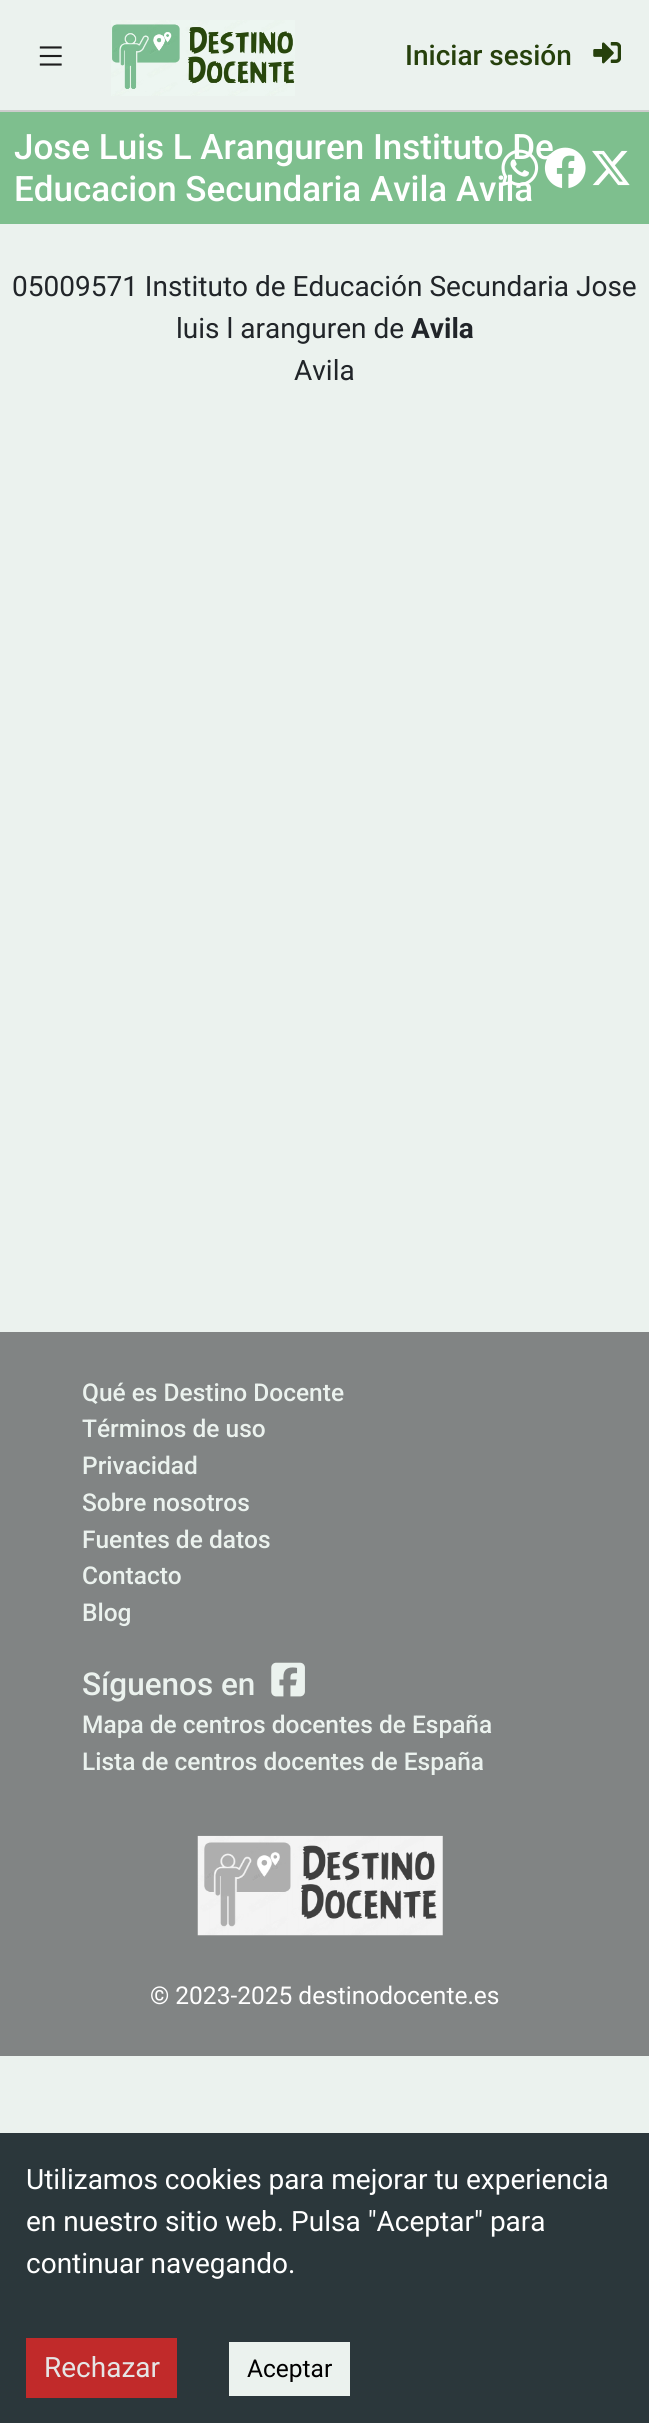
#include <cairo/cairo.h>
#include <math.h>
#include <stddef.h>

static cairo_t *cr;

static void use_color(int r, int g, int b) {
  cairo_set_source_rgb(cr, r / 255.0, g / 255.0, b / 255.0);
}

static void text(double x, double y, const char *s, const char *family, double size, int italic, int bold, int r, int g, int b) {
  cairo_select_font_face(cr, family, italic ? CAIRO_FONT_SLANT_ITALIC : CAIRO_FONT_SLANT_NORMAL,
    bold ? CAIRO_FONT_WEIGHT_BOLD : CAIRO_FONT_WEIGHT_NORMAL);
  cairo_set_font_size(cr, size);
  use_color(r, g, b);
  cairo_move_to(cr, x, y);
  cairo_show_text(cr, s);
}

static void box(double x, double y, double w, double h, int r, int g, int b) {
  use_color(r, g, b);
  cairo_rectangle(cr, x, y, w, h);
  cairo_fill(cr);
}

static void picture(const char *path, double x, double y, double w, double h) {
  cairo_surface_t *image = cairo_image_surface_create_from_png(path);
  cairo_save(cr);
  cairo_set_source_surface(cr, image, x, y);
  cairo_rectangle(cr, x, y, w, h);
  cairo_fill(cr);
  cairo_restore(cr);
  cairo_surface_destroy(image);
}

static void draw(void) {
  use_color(235, 242, 238);
  cairo_paint(cr);
  box(0, 110, 649, 2, 204, 204, 204);
  picture("img_01.png", 39, 46, 23, 20);
  picture("img_02.png", 111, 20, 184, 76);
  picture("img_03.png", 593, 42, 28, 22);
  box(0, 112, 649, 112, 126, 191, 142);
  picture("img_06.png", 592, 150, 38, 36);
  box(0, 1332, 649, 724, 129, 132, 132);
  picture("img_07.png", 271, 1662, 34, 35);
  picture("img_08.png", 197, 1835, 246, 101);
  box(0, 2133, 649, 290, 43, 55, 59);
  box(26, 2338, 151, 60, 193, 42, 42);
  box(229, 2342, 121, 54, 235, 242, 238);
  text(405, 65, "Iniciar sesión", "Roboto Medium", 28, 0, 0, 38, 64, 12);
  text(14, 159, "Jose Luis L Aranguren Instituto De", "Roboto Medium", 35, 0, 0, 255, 255, 255);
  text(14, 201, "Educacion Secundaria Avila Avila", "Roboto Medium", 35, 0, 0, 255, 255, 255);
  picture("img_04.png", 501, 149, 38, 37);
  picture("img_05.png", 544, 147, 42, 41);
  text(12, 296, "05009571 Instituto de Educación Secundaria Jose", "Roboto", 28, 0, 0, 33, 37, 41);
  text(176, 338, "luis l aranguren de", "Roboto", 28, 0, 0, 33, 37, 41);
  text(411, 338, "Avila", "Roboto", 28, 0, 1, 33, 37, 41);
  text(294, 380, "Avila", "Roboto", 28, 0, 0, 33, 37, 41);
  text(82, 1401, "Qué es Destino Docente", "Roboto Medium", 24.5, 0, 0, 235, 242, 238);
  text(82, 1437, "Términos de uso", "Roboto Medium", 24.5, 0, 0, 235, 242, 238);
  text(82, 1474, "Privacidad", "Roboto Medium", 24.5, 0, 0, 235, 242, 238);
  text(82, 1511, "Sobre nosotros", "Roboto Medium", 24.5, 0, 0, 235, 242, 238);
  text(82, 1548, "Fuentes de datos", "Roboto Medium", 24.5, 0, 0, 235, 242, 238);
  text(82, 1584, "Contacto", "Roboto Medium", 24.5, 0, 0, 235, 242, 238);
  text(82, 1621, "Blog", "Roboto Medium", 24.5, 0, 0, 235, 242, 238);
  text(82, 1695, "Síguenos en", "Roboto Medium", 31.5, 0, 0, 235, 242, 238);
  text(82, 1733, "Mapa de centros docentes de España", "Roboto Medium", 24.5, 0, 0, 235, 242, 238);
  text(82, 1770, "Lista de centros docentes de España", "Roboto Medium", 24.5, 0, 0, 235, 242, 238);
  text(150, 2004, "© 2023-2025 destinodocente.es", "Roboto", 24.5, 0, 0, 255, 255, 255);
  text(26, 2189, "Utilizamos cookies para mejorar tu experiencia", "Roboto", 28, 0, 0, 255, 255, 255);
  text(26, 2231, "en nuestro sitio web. Pulsa \"Aceptar\" para", "Roboto", 28, 0, 0, 255, 255, 255);
  text(26, 2273, "continuar navegando.", "Roboto", 28, 0, 0, 255, 255, 255);
  text(44, 2377, "Rechazar", "Roboto", 28, 0, 0, 229, 229, 229);
  text(247, 2377, "Aceptar", "Roboto", 24.5, 0, 0, 0, 0, 0);
}

int main(void) {
  cairo_surface_t *surface = cairo_image_surface_create(CAIRO_FORMAT_RGB24, 649, 2423);
  cr = cairo_create(surface);
  cairo_font_options_t *options = cairo_font_options_create();
  cairo_font_options_set_hint_metrics(options, CAIRO_HINT_METRICS_OFF);
  cairo_font_options_set_hint_style(options, CAIRO_HINT_STYLE_NONE);
  cairo_set_font_options(cr, options);
  cairo_set_miter_limit(cr, 4);
  draw();
  cairo_surface_write_to_png(surface, "out.png");
  cairo_font_options_destroy(options);
  cairo_destroy(cr);
  cairo_surface_destroy(surface);
  return 0;
}
